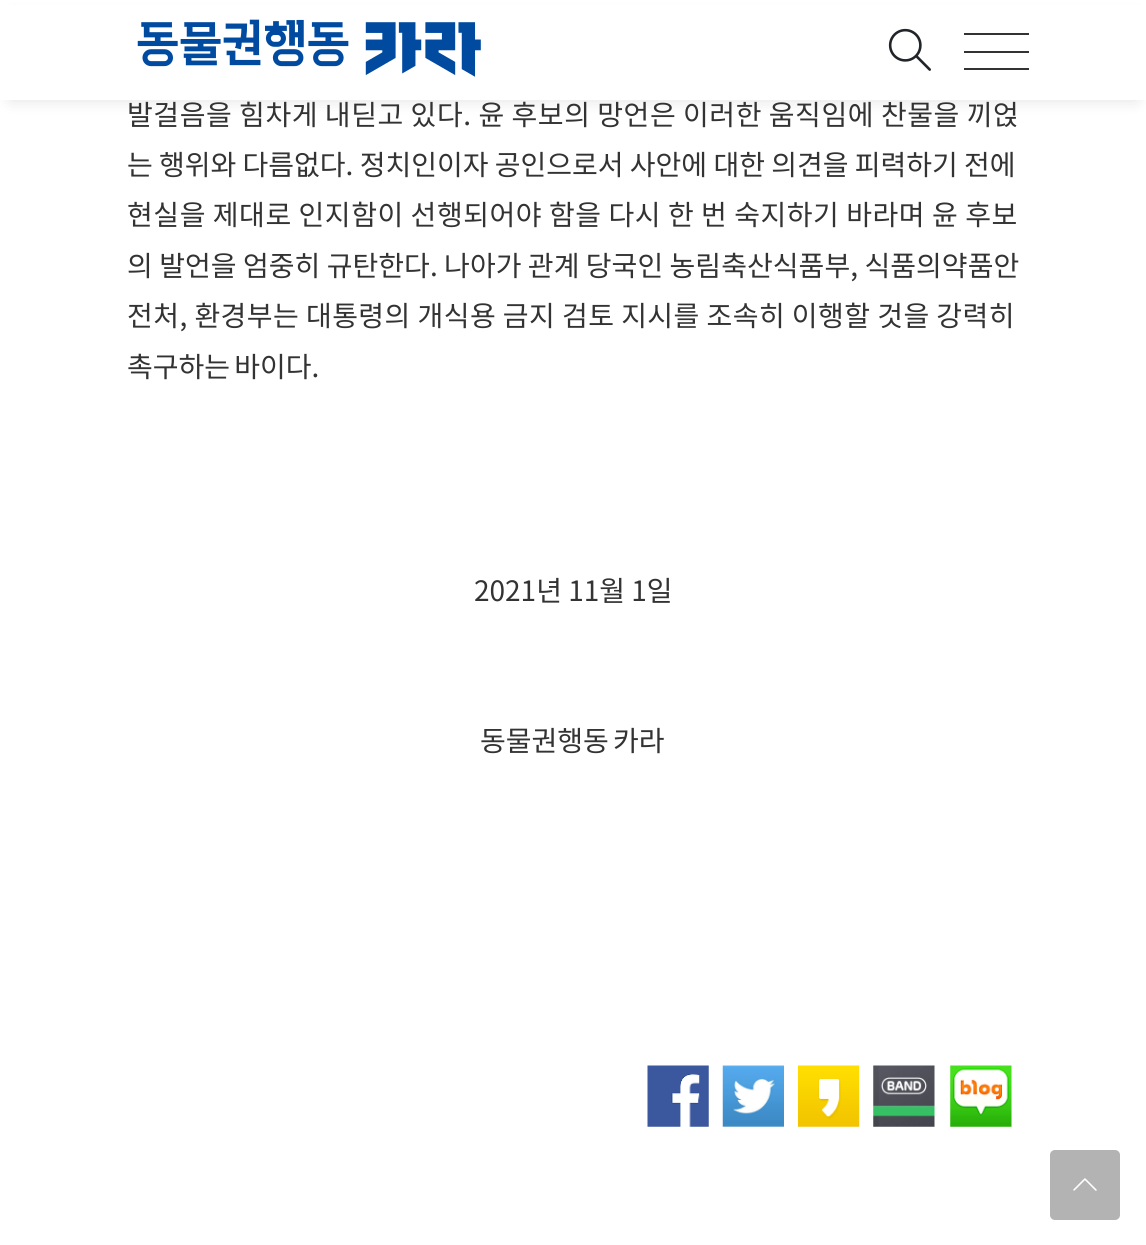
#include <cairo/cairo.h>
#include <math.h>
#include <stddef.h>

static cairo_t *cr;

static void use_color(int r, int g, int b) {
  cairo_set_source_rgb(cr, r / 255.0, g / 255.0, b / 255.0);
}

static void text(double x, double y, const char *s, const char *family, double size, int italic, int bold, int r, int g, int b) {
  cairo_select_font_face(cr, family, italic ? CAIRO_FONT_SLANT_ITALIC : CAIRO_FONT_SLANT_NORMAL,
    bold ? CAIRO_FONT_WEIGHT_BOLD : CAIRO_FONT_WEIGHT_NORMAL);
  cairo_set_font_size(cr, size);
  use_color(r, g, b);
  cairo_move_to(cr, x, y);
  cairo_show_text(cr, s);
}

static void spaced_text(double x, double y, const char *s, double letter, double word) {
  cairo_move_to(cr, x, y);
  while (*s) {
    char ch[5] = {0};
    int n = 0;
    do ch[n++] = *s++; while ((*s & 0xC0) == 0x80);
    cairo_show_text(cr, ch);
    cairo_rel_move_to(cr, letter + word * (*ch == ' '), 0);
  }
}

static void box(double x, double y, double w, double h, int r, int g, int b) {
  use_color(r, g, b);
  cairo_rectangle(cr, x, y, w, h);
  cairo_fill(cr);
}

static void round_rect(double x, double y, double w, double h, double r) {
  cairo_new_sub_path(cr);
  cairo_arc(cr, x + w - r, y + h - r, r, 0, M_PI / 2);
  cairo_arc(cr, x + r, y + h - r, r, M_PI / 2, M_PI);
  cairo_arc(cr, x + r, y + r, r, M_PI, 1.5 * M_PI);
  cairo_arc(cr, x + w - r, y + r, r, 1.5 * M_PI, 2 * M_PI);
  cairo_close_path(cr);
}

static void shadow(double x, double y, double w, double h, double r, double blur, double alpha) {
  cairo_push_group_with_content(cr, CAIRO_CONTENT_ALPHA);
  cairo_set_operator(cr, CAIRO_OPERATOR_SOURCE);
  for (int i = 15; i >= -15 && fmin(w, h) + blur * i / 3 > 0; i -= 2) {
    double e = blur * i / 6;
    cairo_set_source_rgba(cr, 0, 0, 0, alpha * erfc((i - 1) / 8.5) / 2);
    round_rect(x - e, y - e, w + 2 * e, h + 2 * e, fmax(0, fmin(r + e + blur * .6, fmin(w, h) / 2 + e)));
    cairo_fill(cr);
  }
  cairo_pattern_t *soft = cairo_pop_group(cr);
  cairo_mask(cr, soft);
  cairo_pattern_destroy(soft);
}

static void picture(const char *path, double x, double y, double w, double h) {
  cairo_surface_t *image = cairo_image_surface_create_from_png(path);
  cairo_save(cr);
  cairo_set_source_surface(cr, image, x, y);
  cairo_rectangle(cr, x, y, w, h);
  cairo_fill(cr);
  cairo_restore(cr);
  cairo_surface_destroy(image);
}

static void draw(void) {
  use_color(255, 255, 255);
  cairo_paint(cr);
  use_color(0, 0, 0);
  shadow(11, 18, 1125, 80, 0, 9, 0.15);
  box(0, 5, 1146, 95, 255, 255, 255);
  picture("img_01.png", 137, 19, 344, 58);
  picture("img_02.png", 888, 28, 43, 43);
  box(964, 33, 65, 2, 51, 51, 51);
  box(964, 51, 65, 2, 51, 51, 51);
  box(964, 68, 65, 2, 51, 51, 51);
  picture("img_03.png", 647, 1065, 62, 62);
  picture("img_04.png", 722, 1065, 62, 62);
  picture("img_05.png", 798, 1065, 62, 62);
  picture("img_06.png", 873, 1065, 62, 62);
  picture("img_07.png", 950, 1065, 62, 62);
  use_color(179, 179, 179);
  round_rect(1050, 1150, 70, 70, 5);
  cairo_fill(cr);
  picture("img_08.png", 1073, 1178, 24, 13);
  cairo_select_font_face(cr, "Noto Sans KR", CAIRO_FONT_SLANT_NORMAL, CAIRO_FONT_WEIGHT_NORMAL);
  cairo_set_font_size(cr, 28);
  use_color(51, 51, 51);
  spaced_text(127, 125, "발걸음을 힘차게 내딛고 있다. 윤 후보의 망언은 이러한 움직임에 찬물을 끼얹", 0.55, 0);
  text(127, 175, "는 행위와 다름없다. 정치인이자 공인으로서 사안에 대한 의견을 피력하기 전에", "Noto Sans KR", 28, 0, 0, 51, 51, 51);
  spaced_text(127, 225, "현실을 제대로 인지함이 선행되어야 함을 다시 한 번 숙지하기 바라며 윤 후보", 0.55, 0);
  spaced_text(127, 276, "의 발언을 엄중히 규탄한다. 나아가 관계 당국인 농림축산식품부, 식품의약품안", 0.05, 0);
  spaced_text(127, 326, "전처, 환경부는 대통령의 개식용 금지 검토 지시를 조속히 이행할 것을 강력히", 0.45, 0);
  spaced_text(127, 377, "촉구하는 바이다.", 0, -2);
  text(474, 601, "2021년 11월 1일", "Noto Sans KR", 28, 0, 0, 51, 51, 51);
  spaced_text(480, 751, "동물권행동 카라", 0, -2);
}

int main(void) {
  cairo_surface_t *surface = cairo_image_surface_create(CAIRO_FORMAT_RGB24, 1146, 1245);
  cr = cairo_create(surface);
  cairo_font_options_t *options = cairo_font_options_create();
  cairo_font_options_set_hint_metrics(options, CAIRO_HINT_METRICS_OFF);
  cairo_font_options_set_hint_style(options, CAIRO_HINT_STYLE_NONE);
  cairo_set_font_options(cr, options);
  cairo_set_miter_limit(cr, 4);
  draw();
  cairo_surface_write_to_png(surface, "out.png");
  cairo_font_options_destroy(options);
  cairo_destroy(cr);
  cairo_surface_destroy(surface);
  return 0;
}
